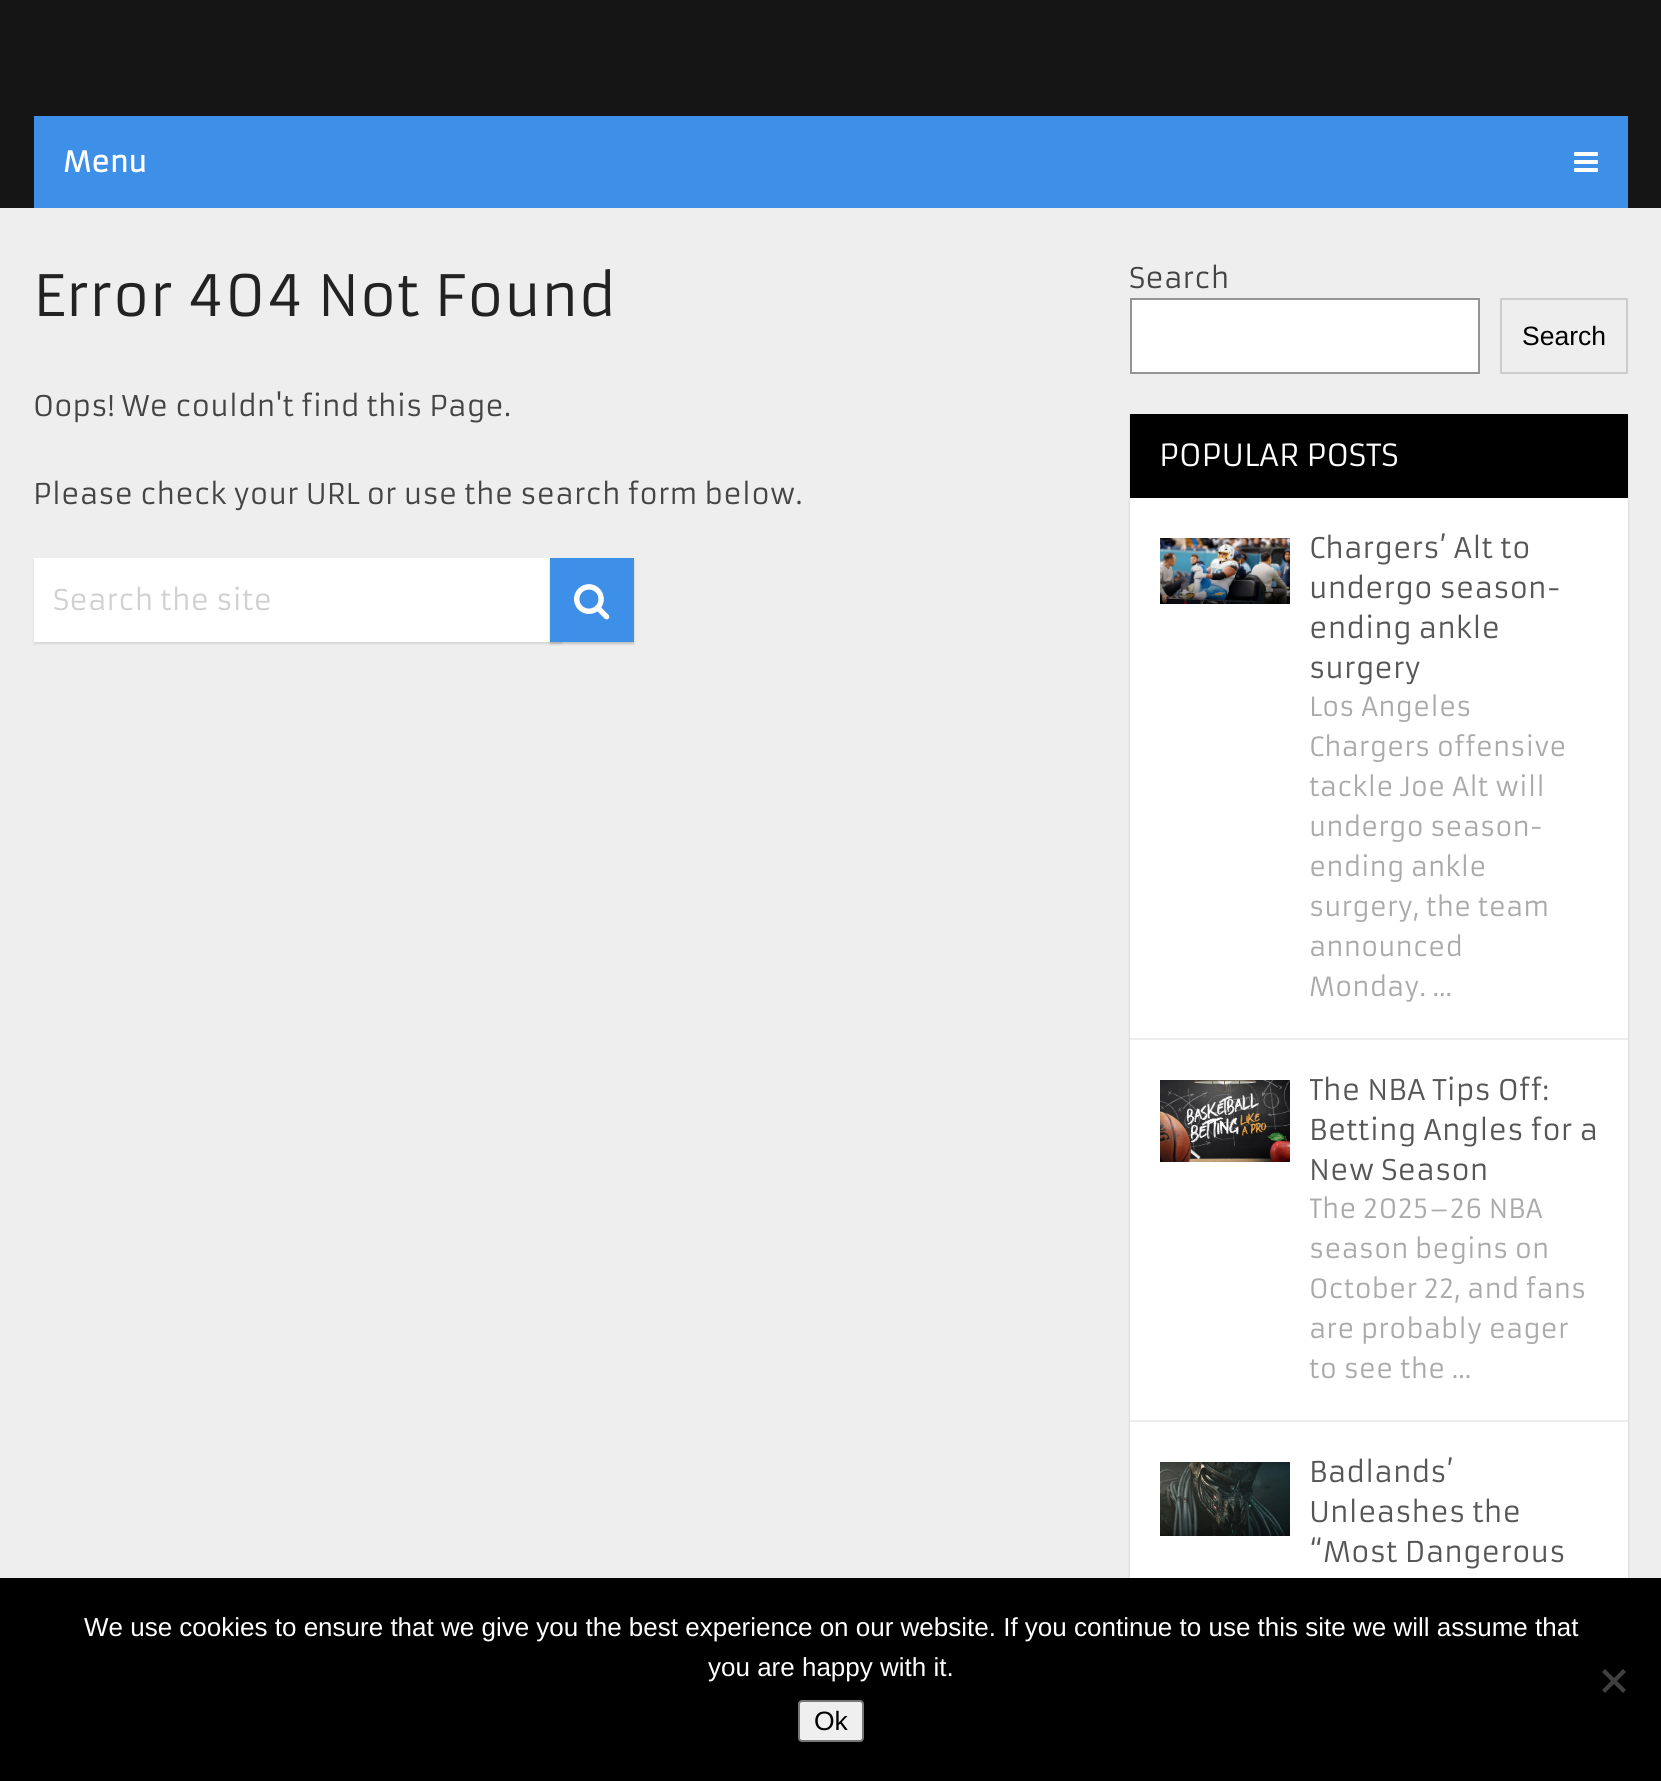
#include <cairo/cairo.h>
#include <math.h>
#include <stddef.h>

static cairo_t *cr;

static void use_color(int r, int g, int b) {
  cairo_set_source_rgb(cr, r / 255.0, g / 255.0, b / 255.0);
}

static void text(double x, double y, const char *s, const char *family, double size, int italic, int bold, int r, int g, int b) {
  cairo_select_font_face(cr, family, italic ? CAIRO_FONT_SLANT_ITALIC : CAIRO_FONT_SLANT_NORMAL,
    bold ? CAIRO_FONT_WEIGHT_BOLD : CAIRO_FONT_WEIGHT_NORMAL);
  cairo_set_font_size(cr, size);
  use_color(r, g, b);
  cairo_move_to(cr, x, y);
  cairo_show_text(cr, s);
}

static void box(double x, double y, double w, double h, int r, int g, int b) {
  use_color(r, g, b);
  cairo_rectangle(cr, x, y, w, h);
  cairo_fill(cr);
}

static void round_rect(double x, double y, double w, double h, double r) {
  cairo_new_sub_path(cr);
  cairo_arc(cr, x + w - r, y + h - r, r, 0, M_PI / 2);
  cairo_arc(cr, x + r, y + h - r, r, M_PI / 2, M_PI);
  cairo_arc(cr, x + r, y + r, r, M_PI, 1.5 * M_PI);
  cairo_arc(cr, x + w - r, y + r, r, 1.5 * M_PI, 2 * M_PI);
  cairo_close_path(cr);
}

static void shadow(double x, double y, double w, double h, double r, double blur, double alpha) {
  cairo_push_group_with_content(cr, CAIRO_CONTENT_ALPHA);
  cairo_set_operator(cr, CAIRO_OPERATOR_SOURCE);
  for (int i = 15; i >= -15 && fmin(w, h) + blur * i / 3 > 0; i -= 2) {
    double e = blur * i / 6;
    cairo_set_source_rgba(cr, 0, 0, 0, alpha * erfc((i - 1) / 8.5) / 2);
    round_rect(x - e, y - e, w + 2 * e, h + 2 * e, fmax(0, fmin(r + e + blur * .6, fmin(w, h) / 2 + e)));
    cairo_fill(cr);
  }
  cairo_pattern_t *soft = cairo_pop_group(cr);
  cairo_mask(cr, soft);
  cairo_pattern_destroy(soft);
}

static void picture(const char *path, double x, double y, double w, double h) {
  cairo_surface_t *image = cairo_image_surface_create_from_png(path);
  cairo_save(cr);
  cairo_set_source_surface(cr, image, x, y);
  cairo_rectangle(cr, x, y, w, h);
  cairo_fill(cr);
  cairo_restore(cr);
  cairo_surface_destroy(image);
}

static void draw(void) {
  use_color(238, 238, 238);
  cairo_paint(cr);
  box(0, 0, 1661, 208, 21, 21, 21);
  box(34, 116, 1594, 92, 61, 143, 232);
  picture("img_01.png", 1574, 152, 24, 20);
  use_color(0, 0, 0);
  shadow(34, 560, 528, 84, 0, 1, 0.1);
  box(34, 558, 516, 84, 255, 255, 255);
  use_color(0, 0, 0);
  shadow(550, 560, 84, 84, 0, 1, 0.1);
  box(550, 558, 84, 84, 61, 143, 232);
  picture("img_02.png", 574, 584, 36, 36);
  cairo_save(cr);
  cairo_set_fill_rule(cr, CAIRO_FILL_RULE_EVEN_ODD);
  cairo_new_path(cr);
  cairo_move_to(cr, 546, 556);
  cairo_line_to(cr, 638, 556);
  cairo_line_to(cr, 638, 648);
  cairo_line_to(cr, 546, 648);
  cairo_close_path(cr);
  cairo_move_to(cr, 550, 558);
  cairo_line_to(cr, 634, 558);
  cairo_line_to(cr, 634, 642);
  cairo_line_to(cr, 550, 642);
  cairo_close_path(cr);
  cairo_clip(cr);
  use_color(0, 0, 0);
  shadow(550, 560, 84, 84, 0, 1, 0.1);
  cairo_restore(cr);
  use_color(255, 255, 255);
  cairo_rectangle(cr, 1131, 299, 348, 74);
  cairo_fill_preserve(cr);
  use_color(148, 148, 148);
  cairo_stroke(cr);
  cairo_rectangle(cr, 1501, 299, 126, 74);
  use_color(204, 204, 204);
  cairo_stroke(cr);
  use_color(0, 0, 0);
  shadow(1130, 416, 498, 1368, 0, 1, 0.1);
  box(1130, 414, 498, 84, 0, 0, 0);
  use_color(0, 0, 0);
  shadow(1130, 500, 498, 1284, 0, 1, 0.1);
  box(1130, 498, 498, 1080, 255, 255, 255);
  box(1130, 1038, 498, 2, 237, 237, 237);
  picture("img_03.png", 1160, 538, 130, 66);
  box(1130, 1420, 498, 2, 237, 237, 237);
  picture("img_04.png", 1160, 1080, 130, 82);
  picture("img_05.png", 1160, 1462, 130, 74);
  box(0, 1578, 1661, 203, 0, 0, 0);
  use_color(64, 64, 64);
  cairo_new_path(cr);
  cairo_move_to(cr, 1623, 1669);
  cairo_line_to(cr, 1626, 1672);
  cairo_line_to(cr, 1605, 1693);
  cairo_line_to(cr, 1602, 1690);
  cairo_close_path(cr);
  cairo_fill(cr);
  cairo_new_path(cr);
  cairo_move_to(cr, 1602, 1672);
  cairo_line_to(cr, 1605, 1669);
  cairo_line_to(cr, 1626, 1690);
  cairo_line_to(cr, 1623, 1693);
  cairo_close_path(cr);
  cairo_fill(cr);
  use_color(239, 239, 239);
  round_rect(799, 1701, 64, 40, 3);
  cairo_fill_preserve(cr);
  use_color(118, 118, 118);
  cairo_stroke(cr);
  text(63, 172, "Menu", "Armata", 28, 0, 1, 255, 255, 255);
  text(33, 316, "Error 404 Not Found", "Armata", 56, 0, 0, 34, 34, 34);
  text(33, 416, "Oops! We couldn't find this Page.", "Armata", 28, 0, 0, 68, 68, 68);
  text(33, 504, "Please check your URL or use the search form below.", "Armata", 28, 0, 0, 68, 68, 68);
  text(53, 610, "Search the site", "Armata", 28, 0, 0, 208, 208, 208);
  text(1129, 288, "Search", "Armata", 28, 0, 0, 68, 68, 68);
  text(1522, 345, "Search", "Liberation Sans", 26.5, 0, 0, 0, 0, 0);
  text(1159, 466, "POPULAR POSTS", "Armata", 30, 0, 0, 255, 255, 255);
  text(1309, 558, "Chargers’ Alt to", "Armata", 28, 0, 0, 86, 86, 86);
  text(1309, 598, "undergo season-", "Armata", 28, 0, 0, 86, 86, 86);
  text(1309, 638, "ending ankle", "Armata", 28, 0, 0, 86, 86, 86);
  text(1309, 678, "surgery", "Armata", 28, 0, 0, 86, 86, 86);
  text(1309, 716, "Los Angeles", "Armata", 26, 0, 0, 170, 170, 170);
  text(1309, 756, "Chargers offensive", "Armata", 26, 0, 0, 170, 170, 170);
  text(1309, 796, "tackle Joe Alt will", "Armata", 26, 0, 0, 170, 170, 170);
  text(1309, 836, "undergo season-", "Armata", 26, 0, 0, 170, 170, 170);
  text(1309, 876, "ending ankle", "Armata", 26, 0, 0, 170, 170, 170);
  text(1309, 916, "surgery, the team", "Armata", 26, 0, 0, 170, 170, 170);
  text(1309, 956, "announced", "Armata", 26, 0, 0, 170, 170, 170);
  text(1309, 996, "Monday. …", "Armata", 26, 0, 0, 170, 170, 170);
  cairo_save(cr);
  cairo_rectangle(cr, 1310, 1070, 288, 320);
  cairo_clip(cr);
  text(1309, 1100, "The NBA Tips Off:", "Armata", 28, 0, 0, 86, 86, 86);
  cairo_restore(cr);
  text(1309, 1140, "Betting Angles for a", "Armata", 28, 0, 0, 86, 86, 86);
  text(1309, 1180, "New Season", "Armata", 28, 0, 0, 86, 86, 86);
  cairo_save(cr);
  cairo_rectangle(cr, 1310, 1070, 288, 320);
  cairo_clip(cr);
  text(1309, 1218, "The 2025–26 NBA", "Armata", 26, 0, 0, 170, 170, 170);
  cairo_restore(cr);
  text(1309, 1258, "season begins on", "Armata", 26, 0, 0, 170, 170, 170);
  text(1309, 1298, "October 22, and fans", "Armata", 26, 0, 0, 170, 170, 170);
  text(1309, 1338, "are probably eager", "Armata", 26, 0, 0, 170, 170, 170);
  text(1309, 1378, "to see the …", "Armata", 26, 0, 0, 170, 170, 170);
  text(1309, 1482, "Badlands’", "Armata", 28, 0, 0, 86, 86, 86);
  text(1309, 1522, "Unleashes the", "Armata", 28, 0, 0, 86, 86, 86);
  text(1309, 1562, "“Most Dangerous", "Armata", 28, 0, 0, 86, 86, 86);
  text(84, 1636, "We use cookies to ensure that we give you the best experience on our website. If you continue to use this site we will assume that", "Liberation Sans", 26, 0, 0, 255, 255, 255);
  text(708, 1676, "you are happy with it.", "Liberation Sans", 26, 0, 0, 255, 255, 255);
  text(814, 1730, "Ok", "Liberation Sans", 26.5, 0, 0, 0, 0, 0);
}

int main(void) {
  cairo_surface_t *surface = cairo_image_surface_create(CAIRO_FORMAT_RGB24, 1661, 1781);
  cr = cairo_create(surface);
  cairo_font_options_t *options = cairo_font_options_create();
  cairo_font_options_set_hint_metrics(options, CAIRO_HINT_METRICS_OFF);
  cairo_font_options_set_hint_style(options, CAIRO_HINT_STYLE_NONE);
  cairo_set_font_options(cr, options);
  cairo_set_miter_limit(cr, 4);
  draw();
  cairo_surface_write_to_png(surface, "out.png");
  cairo_font_options_destroy(options);
  cairo_destroy(cr);
  cairo_surface_destroy(surface);
  return 0;
}
